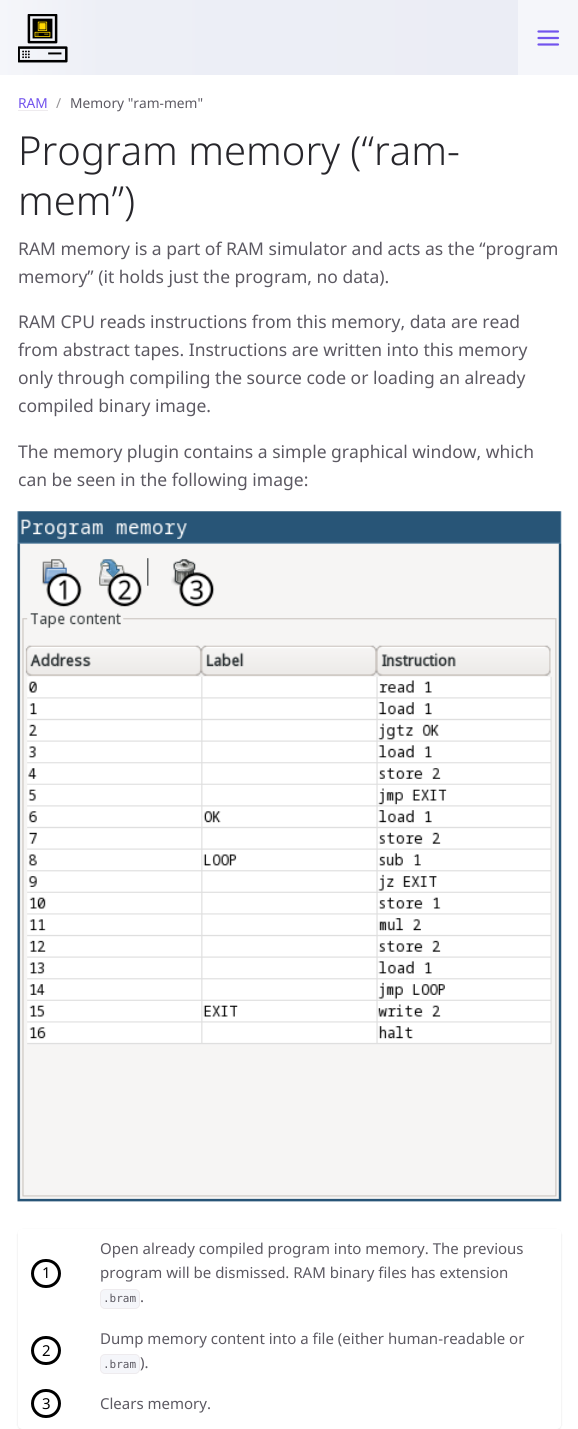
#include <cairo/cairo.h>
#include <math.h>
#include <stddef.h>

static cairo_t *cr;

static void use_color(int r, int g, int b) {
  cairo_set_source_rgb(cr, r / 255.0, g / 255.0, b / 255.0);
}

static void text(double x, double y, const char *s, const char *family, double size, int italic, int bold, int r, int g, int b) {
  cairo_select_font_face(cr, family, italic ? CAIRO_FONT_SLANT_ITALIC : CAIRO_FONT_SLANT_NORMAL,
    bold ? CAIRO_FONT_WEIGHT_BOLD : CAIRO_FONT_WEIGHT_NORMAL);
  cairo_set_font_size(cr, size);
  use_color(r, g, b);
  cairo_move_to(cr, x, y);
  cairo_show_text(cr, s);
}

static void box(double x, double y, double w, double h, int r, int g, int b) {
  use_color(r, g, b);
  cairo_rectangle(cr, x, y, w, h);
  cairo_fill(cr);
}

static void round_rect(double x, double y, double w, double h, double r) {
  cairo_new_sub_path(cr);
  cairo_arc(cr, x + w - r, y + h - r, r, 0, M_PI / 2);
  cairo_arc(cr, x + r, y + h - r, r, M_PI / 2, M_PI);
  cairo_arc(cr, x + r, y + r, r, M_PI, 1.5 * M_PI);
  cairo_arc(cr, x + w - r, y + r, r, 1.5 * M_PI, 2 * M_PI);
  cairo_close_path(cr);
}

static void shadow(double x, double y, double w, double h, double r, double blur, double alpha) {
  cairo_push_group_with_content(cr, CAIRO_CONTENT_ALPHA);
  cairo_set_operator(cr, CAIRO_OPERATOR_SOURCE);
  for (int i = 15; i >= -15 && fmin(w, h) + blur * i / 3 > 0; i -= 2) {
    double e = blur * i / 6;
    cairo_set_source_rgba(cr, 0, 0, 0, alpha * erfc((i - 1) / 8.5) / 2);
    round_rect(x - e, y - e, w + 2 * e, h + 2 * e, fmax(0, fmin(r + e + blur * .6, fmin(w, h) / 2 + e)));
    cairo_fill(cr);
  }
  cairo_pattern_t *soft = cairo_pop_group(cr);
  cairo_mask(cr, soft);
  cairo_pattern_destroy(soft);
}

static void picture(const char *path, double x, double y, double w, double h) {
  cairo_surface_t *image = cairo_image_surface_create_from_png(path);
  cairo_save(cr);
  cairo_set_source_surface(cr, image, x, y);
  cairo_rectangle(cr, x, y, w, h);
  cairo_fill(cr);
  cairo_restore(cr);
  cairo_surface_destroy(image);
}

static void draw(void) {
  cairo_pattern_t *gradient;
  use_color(255, 255, 255);
  cairo_paint(cr);
  box(518, 0, 60, 75, 245, 246, 250);
  gradient = cairo_pattern_create_linear(518, 38, 0, 37);
  cairo_pattern_add_color_stop_rgba(gradient, 0, 0.922, 0.929, 0.961, 1);
  cairo_pattern_add_color_stop_rgba(gradient, 0.8, 0.929, 0.937, 0.965, 1);
  cairo_pattern_add_color_stop_rgba(gradient, 1, 0.961, 0.965, 0.98, 1);
  cairo_set_source(cr, gradient);
  cairo_pattern_destroy(gradient);
  cairo_rectangle(cr, 0, 0, 518, 75);
  cairo_fill(cr);
  picture("img_01.png", 18, 14, 50, 49);
  cairo_new_path(cr);
  cairo_move_to(cr, 538.5, 38);
  cairo_line_to(cr, 558, 38);
  cairo_move_to(cr, 538.5, 31.5);
  cairo_line_to(cr, 558, 31.5);
  cairo_move_to(cr, 538.5, 44.5);
  cairo_line_to(cr, 558, 44.5);
  use_color(114, 83, 237);
  cairo_set_line_width(cr, 2.2);
  cairo_set_line_cap(cr, CAIRO_LINE_CAP_ROUND);
  cairo_set_line_join(cr, CAIRO_LINE_JOIN_ROUND);
  cairo_stroke(cr);
  box(18, 110, 30, 1, 238, 235, 238);
  picture("img_02.png", 17, 511, 545, 691);
  cairo_save(cr);
  cairo_set_fill_rule(cr, CAIRO_FILL_RULE_EVEN_ODD);
  cairo_new_path(cr);
  cairo_move_to(cr, 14, 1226);
  cairo_line_to(cr, 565, 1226);
  cairo_line_to(cr, 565, 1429);
  cairo_line_to(cr, 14, 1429);
  cairo_close_path(cr);
  cairo_move_to(cr, 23, 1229);
  cairo_line_to(cr, 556, 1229);
  cairo_curve_to(cr, 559, 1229, 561, 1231, 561, 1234);
  cairo_line_to(cr, 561, 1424);
  cairo_curve_to(cr, 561, 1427, 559, 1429, 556, 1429);
  cairo_line_to(cr, 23, 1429);
  cairo_curve_to(cr, 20, 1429, 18, 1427, 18, 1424);
  cairo_line_to(cr, 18, 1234);
  cairo_curve_to(cr, 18, 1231, 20, 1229, 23, 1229);
  cairo_close_path(cr);
  cairo_clip(cr);
  use_color(0, 0, 0);
  shadow(18, 1230, 543, 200, 5, 1, 0.12);
  cairo_restore(cr);
  round_rect(32.5, 1260.5, 27, 26, 13);
  use_color(0, 0, 0);
  cairo_set_line_width(cr, 3);
  cairo_set_line_cap(cr, CAIRO_LINE_CAP_BUTT);
  cairo_set_line_join(cr, CAIRO_LINE_JOIN_MITER);
  cairo_stroke(cr);
  use_color(245, 246, 250);
  round_rect(100.5, 1289.5, 39, 19, 4.5);
  cairo_fill_preserve(cr);
  use_color(238, 235, 238);
  cairo_set_line_width(cr, 1);
  cairo_stroke(cr);
  round_rect(32.5, 1337.5, 27, 26, 13);
  use_color(0, 0, 0);
  cairo_set_line_width(cr, 3);
  cairo_stroke(cr);
  use_color(245, 246, 250);
  round_rect(100.5, 1354.5, 39, 19, 4.5);
  cairo_fill_preserve(cr);
  use_color(238, 235, 238);
  cairo_set_line_width(cr, 1);
  cairo_stroke(cr);
  round_rect(32.5, 1390.5, 27, 26, 13);
  use_color(0, 0, 0);
  cairo_set_line_width(cr, 3);
  cairo_stroke(cr);
  text(18, 108, "RAM", "Noto Sans", 13.75, 0, 0, 114, 83, 237);
  text(56, 108, "/", "Noto Sans", 13.75, 0, 0, 149, 147, 150);
  text(70, 108, "Memory \"ram-mem\"", "Noto Sans", 13.75, 0, 0, 92, 89, 98);
  text(18, 165, "Program memory (“ram-", "Noto Sans Light", 40, 0, 0, 39, 38, 43);
  text(18, 215, "mem”)", "Noto Sans Light", 40, 0, 0, 39, 38, 43);
  text(18, 255, "RAM memory is a part of RAM simulator and acts as the “program", "Noto Sans", 17.5, 0, 0, 92, 89, 98);
  text(18, 283, "memory” (it holds just the program, no data).", "Noto Sans", 17.5, 0, 0, 92, 89, 98);
  text(18, 328, "RAM CPU reads instructions from this memory, data are read", "Noto Sans", 17.5, 0, 0, 92, 89, 98);
  text(18, 356, "from abstract tapes. Instructions are written into this memory", "Noto Sans", 17.5, 0, 0, 92, 89, 98);
  text(18, 384, "only through compiling the source code or loading an already", "Noto Sans", 17.5, 0, 0, 92, 89, 98);
  text(18, 412, "compiled binary image.", "Noto Sans", 17.5, 0, 0, 92, 89, 98);
  text(18, 458, "The memory plugin contains a simple graphical window, which", "Noto Sans", 17.5, 0, 0, 92, 89, 98);
  text(18, 486, "can be seen in the following image:", "Noto Sans", 17.5, 0, 0, 92, 89, 98);
  text(42, 1278, "1", "Noto Sans", 15, 0, 0, 0, 0, 0);
  text(100, 1254, "Open already compiled program into memory. The previous", "Noto Sans", 15, 0, 0, 92, 89, 98);
  text(100, 1278, "program will be dismissed. RAM binary files has extension", "Noto Sans", 15, 0, 0, 92, 89, 98);
  text(103, 1302, ".bram", "DejaVu Sans Mono", 11, 0, 0, 92, 89, 98);
  text(140, 1302, ".", "Noto Sans", 15, 0, 0, 92, 89, 98);
  text(42, 1356, "2", "Noto Sans", 15, 0, 0, 0, 0, 0);
  text(100, 1344, "Dump memory content into a file (either human-readable or", "Noto Sans", 15, 0, 0, 92, 89, 98);
  text(103, 1368, ".bram", "DejaVu Sans Mono", 11, 0, 0, 92, 89, 98);
  text(140, 1368, ").", "Noto Sans", 15, 0, 0, 92, 89, 98);
  text(42, 1409, "3", "Noto Sans", 15, 0, 0, 0, 0, 0);
  text(100, 1409, "Clears memory.", "Noto Sans", 15, 0, 0, 92, 89, 98);
}

int main(void) {
  cairo_surface_t *surface = cairo_image_surface_create(CAIRO_FORMAT_RGB24, 578, 1429);
  cr = cairo_create(surface);
  cairo_font_options_t *options = cairo_font_options_create();
  cairo_font_options_set_hint_metrics(options, CAIRO_HINT_METRICS_OFF);
  cairo_font_options_set_hint_style(options, CAIRO_HINT_STYLE_NONE);
  cairo_set_font_options(cr, options);
  cairo_set_miter_limit(cr, 4);
  draw();
  cairo_surface_write_to_png(surface, "out.png");
  cairo_font_options_destroy(options);
  cairo_destroy(cr);
  cairo_surface_destroy(surface);
  return 0;
}
